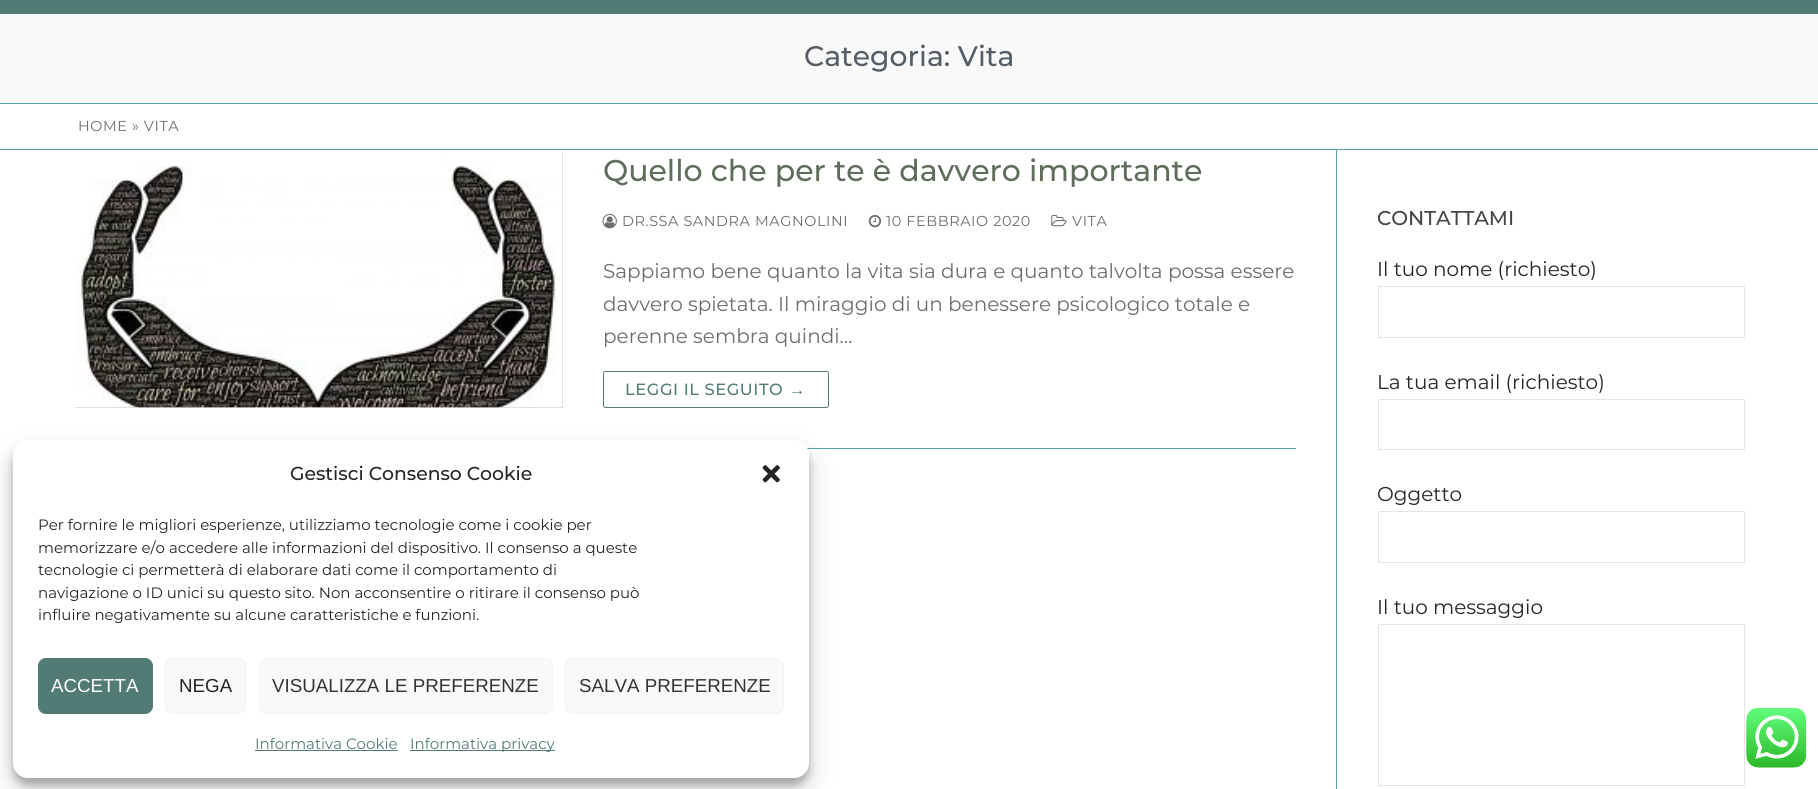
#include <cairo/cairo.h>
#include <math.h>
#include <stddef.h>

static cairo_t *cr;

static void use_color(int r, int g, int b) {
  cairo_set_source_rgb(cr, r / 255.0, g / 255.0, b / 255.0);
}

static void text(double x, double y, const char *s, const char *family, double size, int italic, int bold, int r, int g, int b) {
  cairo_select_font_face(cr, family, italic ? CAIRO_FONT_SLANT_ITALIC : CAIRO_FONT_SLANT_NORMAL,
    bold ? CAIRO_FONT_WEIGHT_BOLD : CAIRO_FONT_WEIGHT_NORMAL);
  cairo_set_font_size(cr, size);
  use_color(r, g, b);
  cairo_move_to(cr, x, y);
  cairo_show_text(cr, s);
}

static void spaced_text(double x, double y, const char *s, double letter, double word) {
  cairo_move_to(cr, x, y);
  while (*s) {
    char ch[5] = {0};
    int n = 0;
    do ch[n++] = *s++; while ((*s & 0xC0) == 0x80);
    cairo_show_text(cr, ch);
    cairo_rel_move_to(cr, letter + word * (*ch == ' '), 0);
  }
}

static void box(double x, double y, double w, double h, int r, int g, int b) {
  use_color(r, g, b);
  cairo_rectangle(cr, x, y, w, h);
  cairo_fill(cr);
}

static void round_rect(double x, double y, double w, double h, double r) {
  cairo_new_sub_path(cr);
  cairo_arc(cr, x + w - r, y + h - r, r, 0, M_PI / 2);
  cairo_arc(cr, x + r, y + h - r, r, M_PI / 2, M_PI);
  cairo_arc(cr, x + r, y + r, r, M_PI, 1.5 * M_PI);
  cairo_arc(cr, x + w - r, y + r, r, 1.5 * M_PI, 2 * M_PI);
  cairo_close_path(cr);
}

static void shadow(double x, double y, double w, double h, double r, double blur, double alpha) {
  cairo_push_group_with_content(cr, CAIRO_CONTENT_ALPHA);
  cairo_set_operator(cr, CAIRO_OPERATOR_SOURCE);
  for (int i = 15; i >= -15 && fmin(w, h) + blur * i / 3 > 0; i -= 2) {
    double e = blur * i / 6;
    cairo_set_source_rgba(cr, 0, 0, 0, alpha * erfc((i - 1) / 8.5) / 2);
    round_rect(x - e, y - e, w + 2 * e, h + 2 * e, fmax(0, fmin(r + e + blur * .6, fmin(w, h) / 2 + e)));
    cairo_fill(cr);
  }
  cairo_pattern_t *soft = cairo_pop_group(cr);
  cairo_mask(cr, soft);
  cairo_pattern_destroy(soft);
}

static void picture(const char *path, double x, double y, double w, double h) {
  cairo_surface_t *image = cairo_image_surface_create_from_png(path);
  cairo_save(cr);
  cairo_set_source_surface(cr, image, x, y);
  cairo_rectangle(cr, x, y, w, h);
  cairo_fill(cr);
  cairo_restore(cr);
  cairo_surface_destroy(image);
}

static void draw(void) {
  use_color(255, 255, 255);
  cairo_paint(cr);
  box(0, 0, 1818, 14, 82, 123, 118);
  box(0, 14, 1818, 89, 249, 249, 249);
  box(0, 103, 1818, 1, 86, 163, 166);
  box(0, 149, 1818, 1, 86, 163, 166);
  box(1336, 150, 1, 639, 86, 163, 166);
  box(807, 448, 489, 1, 86, 163, 166);
  box(75, 153, 488, 255, 213, 213, 213);
  picture("img_01.png", 75, 153, 488, 255);
  picture("img_02.png", 602, 213, 15, 16);
  picture("img_03.png", 868, 215, 14, 13);
  picture("img_04.png", 1051, 214, 16, 13);
  round_rect(603.5, 371.5, 225, 36, 2);
  use_color(82, 123, 118);
  cairo_set_line_width(cr, 1);
  cairo_stroke(cr);
  round_rect(1378.5, 286.5, 366, 51, 0.5);
  use_color(229, 229, 229);
  cairo_stroke(cr);
  round_rect(1378.5, 399.5, 366, 50, 0.5);
  cairo_stroke(cr);
  round_rect(1378.5, 511.5, 366, 51, 0.5);
  cairo_stroke(cr);
  round_rect(1378.5, 624.5, 366, 161, 0.5);
  cairo_stroke(cr);
  use_color(0, 0, 0);
  shadow(13, 448, 796, 337, 15, 4, 0.23);
  shadow(13, 453, 796, 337, 15, 12.5, 0.19);
  use_color(255, 255, 255);
  round_rect(13, 440, 796, 338, 15);
  cairo_fill(cr);
  picture("img_05.png", 762, 465, 18, 18);
  use_color(82, 123, 118);
  round_rect(38.5, 658.5, 114, 55, 7.5);
  cairo_fill_preserve(cr);
  cairo_stroke(cr);
  use_color(249, 249, 249);
  round_rect(165.5, 658.5, 80, 55, 7.5);
  cairo_fill_preserve(cr);
  use_color(242, 242, 242);
  cairo_stroke(cr);
  use_color(249, 249, 249);
  round_rect(259.5, 658.5, 293, 55, 7.5);
  cairo_fill_preserve(cr);
  use_color(242, 242, 242);
  cairo_stroke(cr);
  use_color(249, 249, 249);
  round_rect(565.5, 658.5, 218, 55, 7.5);
  cairo_fill_preserve(cr);
  use_color(242, 242, 242);
  cairo_stroke(cr);
  box(255, 750, 143, 1, 82, 123, 118);
  box(410, 750, 145, 1, 82, 123, 118);
  picture("img_06.png", 1746, 708, 60, 60);
  text(804, 66, "Categoria: Vita", "Montserrat Medium", 28.25, 0, 0, 85, 93, 102);
  cairo_select_font_face(cr, "Montserrat", CAIRO_FONT_SLANT_NORMAL, CAIRO_FONT_WEIGHT_NORMAL);
  cairo_set_font_size(cr, 14.4);
  use_color(109, 109, 109);
  spaced_text(78, 131, "HOME » VITA", 0.6, 0);
  text(603, 181, "Quello che per te è davvero importante", "Montserrat Medium", 30, 0, 0, 96, 109, 93);
  cairo_select_font_face(cr, "Montserrat", CAIRO_FONT_SLANT_NORMAL, CAIRO_FONT_WEIGHT_NORMAL);
  cairo_set_font_size(cr, 14.4);
  use_color(109, 109, 109);
  spaced_text(622, 226, "DR.SSA SANDRA MAGNOLINI", 0.6, 0);
  spaced_text(886, 226, "10 FEBBRAIO 2020", 0.6, 0);
  spaced_text(1072, 226, "VITA", 0.6, 0);
  text(603, 278, "Sappiamo bene quanto la vita sia dura e quanto talvolta possa essere", "Montserrat", 20, 0, 0, 109, 109, 109);
  text(603, 311, "davvero spietata. Il miraggio di un benessere psicologico totale e", "Montserrat", 20, 0, 0, 109, 109, 109);
  text(603, 343, "perenne sembra quindi…", "Montserrat", 20, 0, 0, 109, 109, 109);
  cairo_select_font_face(cr, "Montserrat Medium", CAIRO_FONT_SLANT_NORMAL, CAIRO_FONT_WEIGHT_NORMAL);
  cairo_set_font_size(cr, 16.25);
  use_color(82, 123, 118);
  spaced_text(625, 395, "LEGGI IL SEGUITO", 0.6, 0);
  cairo_select_font_face(cr, "Liberation Serif", CAIRO_FONT_SLANT_NORMAL, CAIRO_FONT_WEIGHT_NORMAL);
  spaced_text(789, 395, "→", 0.6, 0);
  text(1377, 225, "CONTATTAMI", "Montserrat Medium", 20, 0, 0, 68, 68, 68);
  text(1377, 276, "Il tuo nome (richiesto)", "Montserrat", 20, 0, 0, 37, 37, 37);
  text(1377, 389, "La tua email (richiesto)", "Montserrat", 20, 0, 0, 37, 37, 37);
  text(1377, 501, "Oggetto", "Montserrat", 20, 0, 0, 37, 37, 37);
  text(1377, 614, "Il tuo messaggio", "Montserrat", 20, 0, 0, 37, 37, 37);
  text(290, 480, "Gestisci Consenso Cookie", "Montserrat Medium", 18.75, 0, 0, 37, 37, 37);
  text(38, 530, "Per fornire le migliori esperienze, utilizziamo tecnologie come i cookie per", "Montserrat", 15, 0, 0, 37, 37, 37);
  text(38, 553, "memorizzare e/o accedere alle informazioni del dispositivo. Il consenso a queste", "Montserrat", 15, 0, 0, 37, 37, 37);
  text(38, 575, "tecnologie ci permetterà di elaborare dati come il comportamento di", "Montserrat", 15, 0, 0, 37, 37, 37);
  text(38, 598, "navigazione o ID unici su questo sito. Non acconsentire o ritirare il consenso può", "Montserrat", 15, 0, 0, 37, 37, 37);
  text(38, 620, "influire negativamente su alcune caratteristiche e funzioni.", "Montserrat", 15, 0, 0, 37, 37, 37);
  text(51, 692, "ACCETTA", "Liberation Sans", 18.75, 0, 0, 255, 255, 255);
  text(179, 692, "NEGA", "Liberation Sans", 18.75, 0, 0, 37, 37, 37);
  text(272, 692, "VISUALIZZA LE PREFERENZE", "Liberation Sans", 18.75, 0, 0, 51, 51, 51);
  text(579, 692, "SALVA PREFERENZE", "Liberation Sans", 18.75, 0, 0, 51, 51, 51);
  text(255, 749, "Informativa Cookie", "Montserrat", 15, 0, 0, 82, 123, 118);
  text(410, 749, "Informativa privacy", "Montserrat", 15, 0, 0, 82, 123, 118);
}

int main(void) {
  cairo_surface_t *surface = cairo_image_surface_create(CAIRO_FORMAT_RGB24, 1818, 789);
  cr = cairo_create(surface);
  cairo_font_options_t *options = cairo_font_options_create();
  cairo_font_options_set_hint_metrics(options, CAIRO_HINT_METRICS_OFF);
  cairo_font_options_set_hint_style(options, CAIRO_HINT_STYLE_NONE);
  cairo_set_font_options(cr, options);
  cairo_set_miter_limit(cr, 4);
  draw();
  cairo_surface_write_to_png(surface, "out.png");
  cairo_font_options_destroy(options);
  cairo_destroy(cr);
  cairo_surface_destroy(surface);
  return 0;
}
